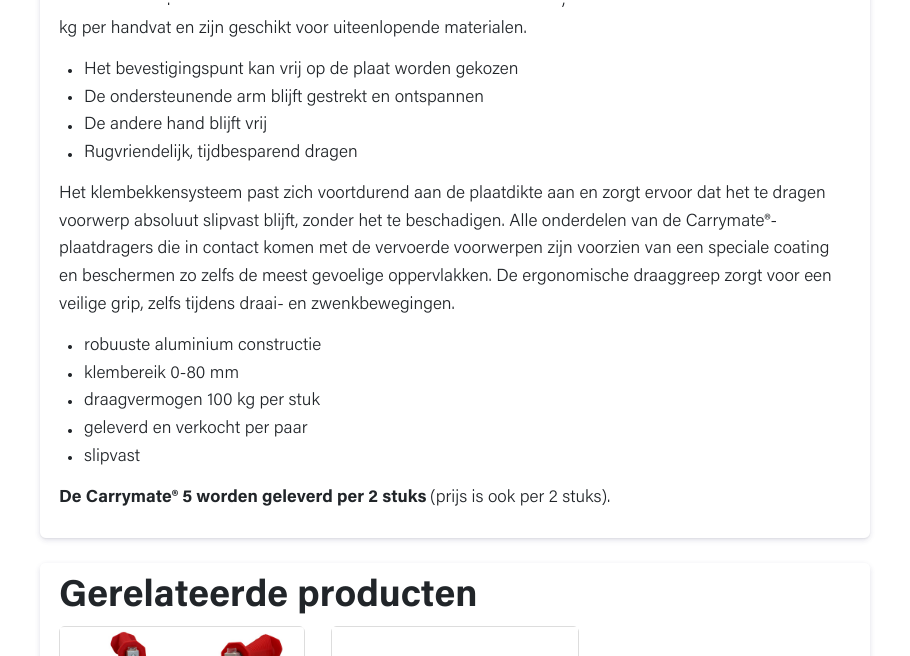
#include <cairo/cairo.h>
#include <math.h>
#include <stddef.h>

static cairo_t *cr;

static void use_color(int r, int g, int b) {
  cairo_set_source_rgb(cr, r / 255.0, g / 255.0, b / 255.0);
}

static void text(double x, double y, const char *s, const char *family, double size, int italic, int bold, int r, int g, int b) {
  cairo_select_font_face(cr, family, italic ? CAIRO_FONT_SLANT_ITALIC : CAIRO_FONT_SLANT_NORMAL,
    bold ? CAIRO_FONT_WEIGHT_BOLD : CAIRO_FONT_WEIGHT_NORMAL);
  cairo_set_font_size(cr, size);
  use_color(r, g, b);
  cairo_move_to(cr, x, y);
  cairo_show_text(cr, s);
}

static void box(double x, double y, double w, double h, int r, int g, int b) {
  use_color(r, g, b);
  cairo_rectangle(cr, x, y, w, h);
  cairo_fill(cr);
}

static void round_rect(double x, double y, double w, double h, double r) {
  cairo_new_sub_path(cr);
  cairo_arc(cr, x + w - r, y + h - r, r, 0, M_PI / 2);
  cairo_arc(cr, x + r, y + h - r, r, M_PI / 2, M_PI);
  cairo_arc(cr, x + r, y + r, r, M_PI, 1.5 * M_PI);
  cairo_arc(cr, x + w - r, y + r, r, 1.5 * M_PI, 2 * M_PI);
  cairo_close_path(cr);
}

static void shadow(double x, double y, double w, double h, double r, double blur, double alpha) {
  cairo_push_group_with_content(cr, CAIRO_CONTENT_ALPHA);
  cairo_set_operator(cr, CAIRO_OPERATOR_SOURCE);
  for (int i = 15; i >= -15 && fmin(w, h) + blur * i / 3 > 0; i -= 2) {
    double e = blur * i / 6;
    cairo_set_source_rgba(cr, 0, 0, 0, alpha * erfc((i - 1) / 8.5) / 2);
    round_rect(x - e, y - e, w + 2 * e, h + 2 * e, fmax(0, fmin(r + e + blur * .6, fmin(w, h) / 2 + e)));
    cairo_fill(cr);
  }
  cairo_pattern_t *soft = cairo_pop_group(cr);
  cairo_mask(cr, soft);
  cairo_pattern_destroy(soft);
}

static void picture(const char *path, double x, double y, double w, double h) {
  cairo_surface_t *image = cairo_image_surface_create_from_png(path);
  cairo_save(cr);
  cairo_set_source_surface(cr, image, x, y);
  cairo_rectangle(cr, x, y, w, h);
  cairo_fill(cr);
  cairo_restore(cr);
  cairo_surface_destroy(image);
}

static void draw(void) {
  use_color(255, 255, 255);
  cairo_paint(cr);
  use_color(0, 0, 0);
  shadow(40, -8, 830, 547, 6, 0.5, 0.05);
  use_color(50, 50, 105);
  shadow(40, -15, 830, 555, 6, 3, 0.15);
  use_color(255, 255, 255);
  round_rect(40, -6, 830, 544, 6);
  cairo_fill(cr);
  use_color(33, 37, 41);
  cairo_arc(cr, 70, 71, 2, 0, 2 * M_PI);
  cairo_fill(cr);
  cairo_arc(cr, 70, 98, 2, 0, 2 * M_PI);
  cairo_fill(cr);
  cairo_arc(cr, 70, 127, 2, 0, 2 * M_PI);
  cairo_fill(cr);
  cairo_arc(cr, 70, 155, 2, 0, 2 * M_PI);
  cairo_fill(cr);
  cairo_arc(cr, 70, 347, 2, 0, 2 * M_PI);
  cairo_fill(cr);
  cairo_arc(cr, 70, 375, 2, 0, 2 * M_PI);
  cairo_fill(cr);
  cairo_arc(cr, 70, 402, 2, 0, 2 * M_PI);
  cairo_fill(cr);
  cairo_arc(cr, 70, 431, 2, 0, 2 * M_PI);
  cairo_fill(cr);
  cairo_arc(cr, 70, 458, 2, 0, 2 * M_PI);
  cairo_fill(cr);
  cairo_save(cr);
  cairo_set_fill_rule(cr, CAIRO_FILL_RULE_EVEN_ODD);
  cairo_new_path(cr);
  cairo_move_to(cr, 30, 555);
  cairo_line_to(cr, 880, 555);
  cairo_line_to(cr, 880, 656);
  cairo_line_to(cr, 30, 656);
  cairo_close_path(cr);
  cairo_move_to(cr, 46, 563);
  cairo_line_to(cr, 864, 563);
  cairo_curve_to(cr, 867.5, 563, 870, 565.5, 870, 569);
  cairo_line_to(cr, 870, 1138);
  cairo_curve_to(cr, 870, 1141.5, 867.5, 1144, 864, 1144);
  cairo_line_to(cr, 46, 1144);
  cairo_curve_to(cr, 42.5, 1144, 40, 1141.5, 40, 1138);
  cairo_line_to(cr, 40, 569);
  cairo_curve_to(cr, 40, 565.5, 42.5, 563, 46, 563);
  cairo_close_path(cr);
  cairo_clip(cr);
  use_color(50, 50, 105);
  shadow(40, 565, 830, 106, 6, 3, 0.15);
  cairo_restore(cr);
  round_rect(59.5, 626.5, 245, 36, 5.5);
  use_color(221, 221, 221);
  cairo_set_line_width(cr, 1);
  cairo_stroke(cr);
  picture("img_01.png", 60, 627, 244, 29);
  round_rect(331.5, 626.5, 247, 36, 5.5);
  cairo_stroke(cr);
  box(332, 627, 246, 4, 255, 255, 255);
  text(167, 5, ".", "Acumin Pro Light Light", 17.45, 0, 0, 33, 37, 41);
  text(562, 5, ",", "Acumin Pro Light Light", 17.45, 0, 0, 33, 37, 41);
  text(59, 33, "kg per handvat en zijn geschikt voor uiteenlopende materialen.", "Acumin Pro Light Light", 17.45, 0, 0, 33, 37, 41);
  text(84, 74, "Het bevestigingspunt kan vrij op de plaat worden gekozen", "Acumin Pro Light Light", 17.45, 0, 0, 33, 37, 41);
  text(84, 102, "De ondersteunende arm blijft gestrekt en ontspannen", "Acumin Pro Light Light", 17.45, 0, 0, 33, 37, 41);
  text(84, 129, "De andere hand blijft vrij", "Acumin Pro Light Light", 17.45, 0, 0, 33, 37, 41);
  text(84, 157, "Rugvriendelijk, tijdbesparend dragen", "Acumin Pro Light Light", 17.45, 0, 0, 33, 37, 41);
  text(59, 198, "Het klembekkensysteem past zich voortdurend aan de plaatdikte aan en zorgt ervoor dat het te dragen", "Acumin Pro Light Light", 17.45, 0, 0, 33, 37, 41);
  text(59, 226, "voorwerp absoluut slipvast blijft, zonder het te beschadigen. Alle onderdelen van de Carrymate®-", "Acumin Pro Light Light", 17.45, 0, 0, 33, 37, 41);
  text(59, 253, "plaatdragers die in contact komen met de vervoerde voorwerpen zijn voorzien van een speciale coating", "Acumin Pro Light Light", 17.45, 0, 0, 33, 37, 41);
  text(59, 281, "en beschermen zo zelfs de meest gevoelige oppervlakken. De ergonomische draaggreep zorgt voor een", "Acumin Pro Light Light", 17.45, 0, 0, 33, 37, 41);
  text(59, 309, "veilige grip, zelfs tijdens draai- en zwenkbewegingen.", "Acumin Pro Light Light", 17.45, 0, 0, 33, 37, 41);
  text(84, 350, "robuuste aluminium constructie", "Acumin Pro Light Light", 17.45, 0, 0, 33, 37, 41);
  text(84, 378, "klembereik 0-80 mm", "Acumin Pro Light Light", 17.45, 0, 0, 33, 37, 41);
  text(84, 405, "draagvermogen 100 kg per stuk", "Acumin Pro Light Light", 17.45, 0, 0, 33, 37, 41);
  text(84, 433, "geleverd en verkocht per paar", "Acumin Pro Light Light", 17.45, 0, 0, 33, 37, 41);
  text(84, 461, "slipvast", "Acumin Pro Light Light", 17.45, 0, 0, 33, 37, 41);
  text(59, 502, "De Carrymate® 5 worden geleverd per 2 stuks", "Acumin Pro", 17.45, 0, 1, 33, 37, 41);
  text(430, 502, "(prijs is ook per 2 stuks).", "Acumin Pro Light Light", 17.45, 0, 0, 33, 37, 41);
  text(59, 606, "Gerelateerde producten", "Acumin Pro", 37.5, 0, 1, 33, 37, 41);
}

int main(void) {
  cairo_surface_t *surface = cairo_image_surface_create(CAIRO_FORMAT_RGB24, 910, 656);
  cr = cairo_create(surface);
  cairo_font_options_t *options = cairo_font_options_create();
  cairo_font_options_set_hint_metrics(options, CAIRO_HINT_METRICS_OFF);
  cairo_font_options_set_hint_style(options, CAIRO_HINT_STYLE_NONE);
  cairo_set_font_options(cr, options);
  cairo_set_miter_limit(cr, 4);
  draw();
  cairo_surface_write_to_png(surface, "out.png");
  cairo_font_options_destroy(options);
  cairo_destroy(cr);
  cairo_surface_destroy(surface);
  return 0;
}
